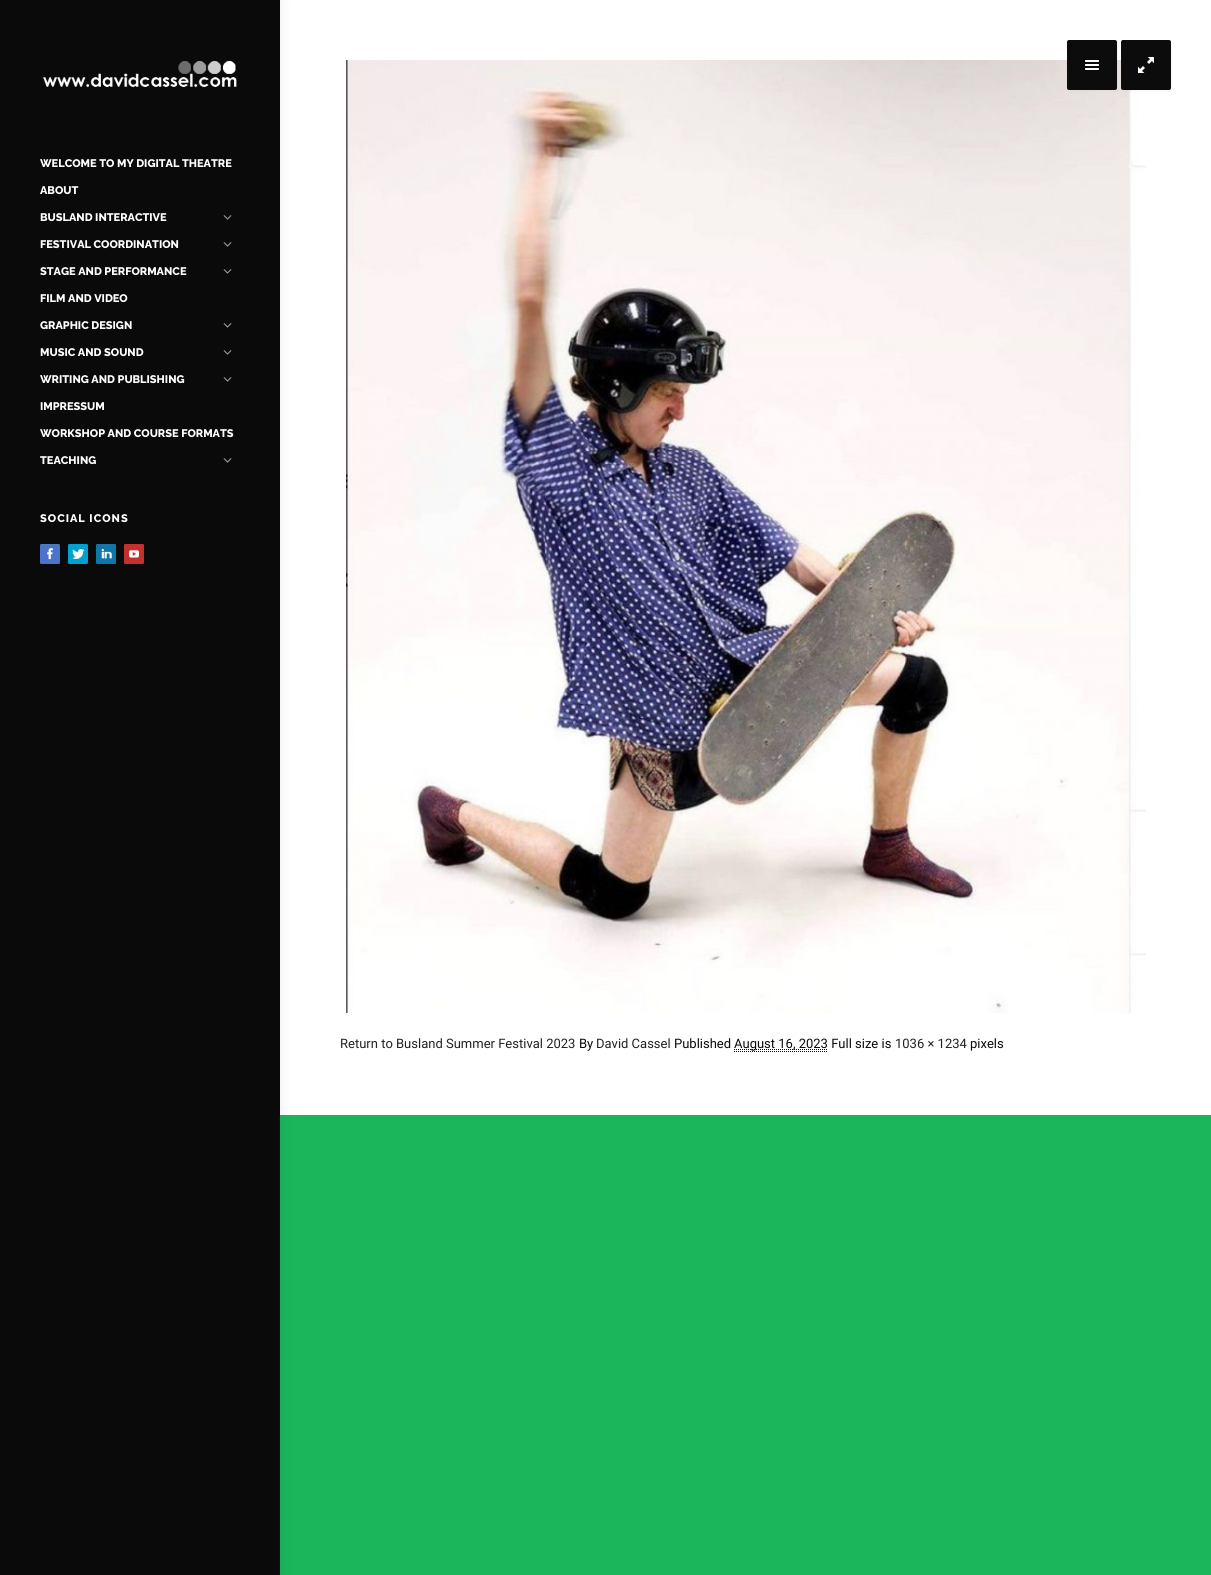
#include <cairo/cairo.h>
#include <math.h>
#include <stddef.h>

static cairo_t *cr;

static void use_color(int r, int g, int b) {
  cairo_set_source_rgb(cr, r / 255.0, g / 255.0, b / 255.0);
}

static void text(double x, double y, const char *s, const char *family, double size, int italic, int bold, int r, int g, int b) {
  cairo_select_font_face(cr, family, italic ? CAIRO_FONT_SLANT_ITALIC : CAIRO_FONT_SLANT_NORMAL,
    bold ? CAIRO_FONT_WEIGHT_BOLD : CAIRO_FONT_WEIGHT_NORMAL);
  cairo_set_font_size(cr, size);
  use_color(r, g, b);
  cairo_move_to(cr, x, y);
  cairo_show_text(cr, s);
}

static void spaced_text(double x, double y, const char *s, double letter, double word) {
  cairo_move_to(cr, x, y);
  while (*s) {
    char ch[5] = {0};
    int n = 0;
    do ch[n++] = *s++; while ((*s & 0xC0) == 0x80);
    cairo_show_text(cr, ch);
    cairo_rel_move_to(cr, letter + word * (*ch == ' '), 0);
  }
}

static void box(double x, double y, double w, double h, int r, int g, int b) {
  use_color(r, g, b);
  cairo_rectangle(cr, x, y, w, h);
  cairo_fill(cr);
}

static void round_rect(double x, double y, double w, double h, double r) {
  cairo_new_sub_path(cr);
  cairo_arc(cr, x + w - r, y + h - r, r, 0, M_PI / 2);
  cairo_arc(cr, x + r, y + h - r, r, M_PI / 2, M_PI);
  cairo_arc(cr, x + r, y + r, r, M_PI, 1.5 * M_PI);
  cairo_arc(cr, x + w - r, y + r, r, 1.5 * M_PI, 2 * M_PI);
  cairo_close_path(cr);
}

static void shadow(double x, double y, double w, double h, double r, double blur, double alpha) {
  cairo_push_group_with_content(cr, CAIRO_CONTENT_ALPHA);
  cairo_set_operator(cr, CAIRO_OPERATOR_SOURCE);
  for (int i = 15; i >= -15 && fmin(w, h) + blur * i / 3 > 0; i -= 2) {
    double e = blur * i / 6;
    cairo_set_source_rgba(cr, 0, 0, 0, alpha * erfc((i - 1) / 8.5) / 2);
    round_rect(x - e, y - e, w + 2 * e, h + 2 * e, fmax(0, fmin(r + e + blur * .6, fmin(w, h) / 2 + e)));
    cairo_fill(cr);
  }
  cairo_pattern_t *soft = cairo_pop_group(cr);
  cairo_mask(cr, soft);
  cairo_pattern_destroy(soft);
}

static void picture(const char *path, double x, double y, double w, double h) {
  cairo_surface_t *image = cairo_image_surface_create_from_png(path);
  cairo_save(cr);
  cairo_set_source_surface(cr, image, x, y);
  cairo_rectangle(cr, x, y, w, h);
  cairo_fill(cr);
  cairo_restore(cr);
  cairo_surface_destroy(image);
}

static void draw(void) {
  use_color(27, 181, 91);
  cairo_paint(cr);
  box(280, 0, 931, 1115, 255, 255, 255);
  picture("img_09.png", 346, 60, 800, 953);
  use_color(0, 0, 0);
  shadow(1068, 41, 50, 50, 2, 1.5, 0.04);
  use_color(12, 12, 12);
  round_rect(1067, 40, 50, 50, 2);
  cairo_fill(cr);
  picture("img_01.png", 1085, 60, 14, 10);
  use_color(0, 0, 0);
  shadow(1122, 41, 50, 50, 2, 1.5, 0.04);
  use_color(12, 12, 12);
  round_rect(1121, 40, 50, 50, 2);
  cairo_fill(cr);
  picture("img_02.png", 1138, 57, 16, 16);
  use_color(0, 0, 0);
  shadow(0, 0, 280, 1575, 0, 6, 0.09);
  box(0, 0, 280, 1575, 10, 10, 10);
  picture("img_03.png", 43, 60, 194, 27);
  picture("img_04.png", 223, 215, 9, 5);
  picture("img_04.png", 223, 242, 9, 5);
  picture("img_04.png", 223, 269, 9, 5);
  picture("img_04.png", 223, 323, 9, 5);
  picture("img_04.png", 223, 350, 9, 5);
  picture("img_04.png", 223, 377, 9, 5);
  picture("img_04.png", 223, 458, 9, 5);
  picture("img_05.png", 40, 544, 20, 20);
  picture("img_06.png", 68, 544, 20, 20);
  picture("img_07.png", 96, 544, 20, 20);
  picture("img_08.png", 124, 544, 20, 20);
  cairo_new_path(cr);
  cairo_move_to(cr, 734, 1051.5);
  cairo_line_to(cr, 828, 1051.5);
  cairo_set_line_width(cr, 1);
  cairo_set_dash(cr, (double[]){1, 1}, 2, 0);
  cairo_stroke(cr);
  cairo_new_path(cr);
  cairo_move_to(cr, 734, 1049.5);
  cairo_line_to(cr, 828, 1049.5);
  cairo_stroke(cr);
  text(40, 167, "WELCOME TO MY DIGITAL THEATRE", "Raleway ExtraBold", 11, 0, 0, 255, 255, 255);
  text(40, 194, "ABOUT", "Raleway ExtraBold", 11, 0, 0, 255, 255, 255);
  text(40, 221, "BUSLAND INTERACTIVE", "Raleway ExtraBold", 11, 0, 0, 255, 255, 255);
  text(40, 248, "FESTIVAL COORDINATION", "Raleway ExtraBold", 11, 0, 0, 255, 255, 255);
  text(40, 275, "STAGE AND PERFORMANCE", "Raleway ExtraBold", 11, 0, 0, 255, 255, 255);
  text(40, 302, "FILM AND VIDEO", "Raleway ExtraBold", 11, 0, 0, 255, 255, 255);
  text(40, 329, "GRAPHIC DESIGN", "Raleway ExtraBold", 11, 0, 0, 255, 255, 255);
  text(40, 356, "MUSIC AND SOUND", "Raleway ExtraBold", 11, 0, 0, 255, 255, 255);
  text(40, 383, "WRITING AND PUBLISHING", "Raleway ExtraBold", 11, 0, 0, 255, 255, 255);
  text(40, 410, "IMPRESSUM", "Raleway ExtraBold", 11, 0, 0, 255, 255, 255);
  text(40, 437, "WORKSHOP AND COURSE FORMATS", "Raleway ExtraBold", 11, 0, 0, 255, 255, 255);
  text(40, 464, "TEACHING", "Raleway ExtraBold", 11, 0, 0, 255, 255, 255);
  spaced_text(40, 522, "SOCIAL ICONS", 1, 0);
  text(340, 1048, "Return to Busland Summer Festival 2023", "Roboto", 13, 0, 0, 34, 34, 34);
  text(579, 1048, "By", "Roboto", 13, 0, 0, 10, 10, 10);
  text(596, 1048, "David Cassel", "Roboto", 13, 0, 0, 34, 34, 34);
  text(674, 1048, "Published", "Roboto", 13, 0, 0, 10, 10, 10);
  text(734, 1048, "August 16, 2023 Full size is", "Roboto", 13, 0, 0, 10, 10, 10);
  text(895, 1048, "1036 × 1234", "Roboto", 13, 0, 0, 34, 34, 34);
  text(970, 1048, "pixels", "Roboto", 13, 0, 0, 10, 10, 10);
}

int main(void) {
  cairo_surface_t *surface = cairo_image_surface_create(CAIRO_FORMAT_RGB24, 1211, 1575);
  cr = cairo_create(surface);
  cairo_font_options_t *options = cairo_font_options_create();
  cairo_font_options_set_hint_metrics(options, CAIRO_HINT_METRICS_OFF);
  cairo_font_options_set_hint_style(options, CAIRO_HINT_STYLE_NONE);
  cairo_set_font_options(cr, options);
  cairo_set_miter_limit(cr, 4);
  draw();
  cairo_surface_write_to_png(surface, "out.png");
  cairo_font_options_destroy(options);
  cairo_destroy(cr);
  cairo_surface_destroy(surface);
  return 0;
}
